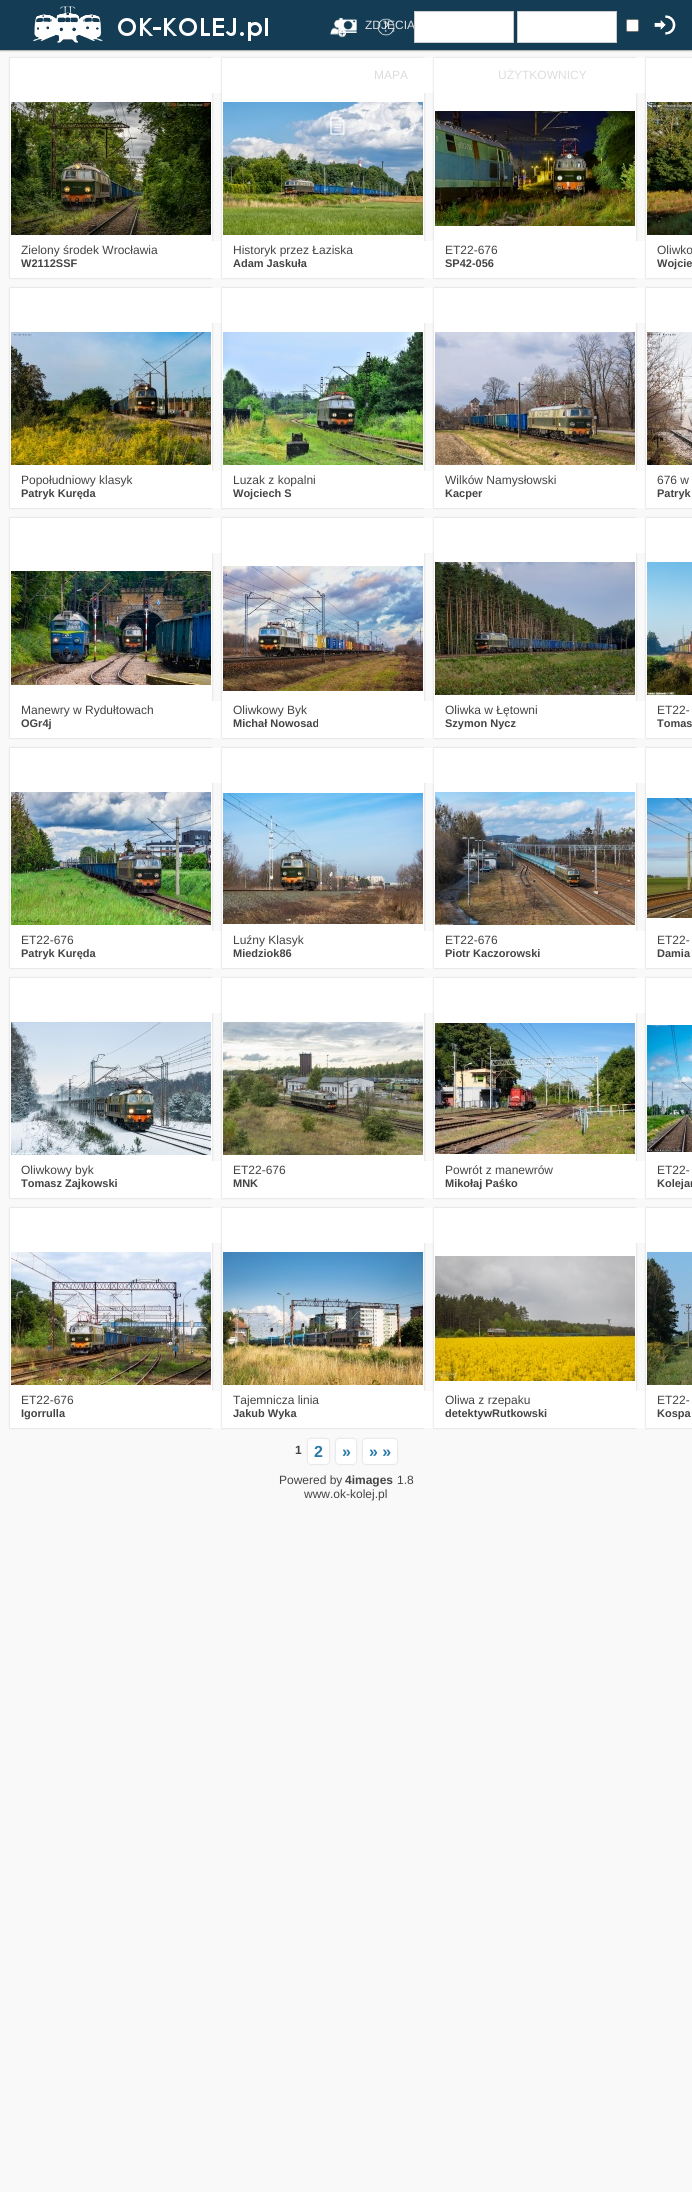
#include <cairo/cairo.h>
#include <math.h>
#include <stddef.h>

static cairo_t *cr;

static void use_color(int r, int g, int b) {
  cairo_set_source_rgb(cr, r / 255.0, g / 255.0, b / 255.0);
}

static void text(double x, double y, const char *s, const char *family, double size, int italic, int bold, int r, int g, int b) {
  cairo_select_font_face(cr, family, italic ? CAIRO_FONT_SLANT_ITALIC : CAIRO_FONT_SLANT_NORMAL,
    bold ? CAIRO_FONT_WEIGHT_BOLD : CAIRO_FONT_WEIGHT_NORMAL);
  cairo_set_font_size(cr, size);
  use_color(r, g, b);
  cairo_move_to(cr, x, y);
  cairo_show_text(cr, s);
}

static void box(double x, double y, double w, double h, int r, int g, int b) {
  use_color(r, g, b);
  cairo_rectangle(cr, x, y, w, h);
  cairo_fill(cr);
}

static void round_rect(double x, double y, double w, double h, double r) {
  cairo_new_sub_path(cr);
  cairo_arc(cr, x + w - r, y + h - r, r, 0, M_PI / 2);
  cairo_arc(cr, x + r, y + h - r, r, M_PI / 2, M_PI);
  cairo_arc(cr, x + r, y + r, r, M_PI, 1.5 * M_PI);
  cairo_arc(cr, x + w - r, y + r, r, 1.5 * M_PI, 2 * M_PI);
  cairo_close_path(cr);
}

static void shadow(double x, double y, double w, double h, double r, double blur, double alpha) {
  cairo_push_group_with_content(cr, CAIRO_CONTENT_ALPHA);
  cairo_set_operator(cr, CAIRO_OPERATOR_SOURCE);
  for (int i = 15; i >= -15 && fmin(w, h) + blur * i / 3 > 0; i -= 2) {
    double e = blur * i / 6;
    cairo_set_source_rgba(cr, 0, 0, 0, alpha * erfc((i - 1) / 8.5) / 2);
    round_rect(x - e, y - e, w + 2 * e, h + 2 * e, fmax(0, fmin(r + e + blur * .6, fmin(w, h) / 2 + e)));
    cairo_fill(cr);
  }
  cairo_pattern_t *soft = cairo_pop_group(cr);
  cairo_mask(cr, soft);
  cairo_pattern_destroy(soft);
}

static void picture(const char *path, double x, double y, double w, double h) {
  cairo_surface_t *image = cairo_image_surface_create_from_png(path);
  cairo_save(cr);
  cairo_set_source_surface(cr, image, x, y);
  cairo_rectangle(cr, x, y, w, h);
  cairo_fill(cr);
  cairo_restore(cr);
  cairo_surface_destroy(image);
}

static void draw(void) {
  use_color(249, 249, 249);
  cairo_paint(cr);
  use_color(51, 51, 51);
  shadow(0, 0, 692, 50, 0, 1, 1);
  box(0, 0, 692, 50, 20, 61, 85);
  picture("img_01.png", 33, 6, 235, 37);
  picture("img_05.png", 338, 18, 19, 15);
  picture("img_02.png", 330, 19, 16, 19);
  use_color(255, 255, 255);
  cairo_rectangle(cr, 517.5, 11.5, 99, 31);
  cairo_fill_preserve(cr);
  use_color(204, 204, 204);
  cairo_set_line_width(cr, 1);
  cairo_stroke(cr);
  use_color(255, 255, 255);
  round_rect(626.5, 19.5, 12, 12, 1.5);
  cairo_fill_preserve(cr);
  use_color(118, 118, 118);
  cairo_stroke(cr);
  picture("img_04.png", 654, 15, 22, 20);
  use_color(204, 204, 204);
  shadow(10, 58, 202, 220, 0, 1, 1);
  box(212, 58, 10, 35, 255, 255, 255);
  box(212, 241, 10, 37, 255, 255, 255);
  use_color(204, 204, 204);
  shadow(222, 58, 202, 220, 0, 1, 1);
  box(222, 58, 202, 220, 255, 255, 255);
  picture("img_08.png", 223, 102, 200, 133);
  picture("img_06.png", 330, 116, 15, 19);
  box(10, 58, 202, 220, 255, 255, 255);
  picture("img_07.png", 11, 102, 200, 133);
  box(424, 58, 10, 35, 255, 255, 255);
  box(424, 241, 10, 37, 255, 255, 255);
  use_color(204, 204, 204);
  shadow(434, 58, 202, 220, 0, 1, 1);
  box(434, 58, 202, 220, 255, 255, 255);
  box(636, 58, 10, 35, 255, 255, 255);
  picture("img_09.png", 435, 111, 200, 115);
  box(636, 241, 10, 37, 255, 255, 255);
  use_color(204, 204, 204);
  shadow(646, 58, 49, 220, 0, 1, 1);
  box(646, 58, 46, 220, 255, 255, 255);
  picture("img_10.png", 647, 102, 45, 133);
  use_color(204, 204, 204);
  shadow(10, 288, 202, 220, 0, 1, 1);
  box(10, 288, 202, 220, 255, 255, 255);
  box(212, 288, 10, 35, 255, 255, 255);
  picture("img_11.png", 11, 332, 200, 133);
  box(212, 471, 10, 37, 255, 255, 255);
  use_color(204, 204, 204);
  shadow(222, 288, 202, 220, 0, 1, 1);
  box(222, 288, 202, 220, 255, 255, 255);
  box(424, 288, 10, 35, 255, 255, 255);
  picture("img_12.png", 223, 332, 200, 133);
  box(424, 471, 10, 37, 255, 255, 255);
  use_color(204, 204, 204);
  shadow(434, 288, 202, 220, 0, 1, 1);
  box(434, 288, 202, 220, 255, 255, 255);
  box(636, 288, 10, 35, 255, 255, 255);
  picture("img_13.png", 435, 332, 200, 133);
  box(636, 471, 10, 37, 255, 255, 255);
  use_color(204, 204, 204);
  shadow(646, 288, 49, 220, 0, 1, 1);
  box(646, 288, 46, 220, 255, 255, 255);
  picture("img_14.png", 647, 332, 45, 133);
  use_color(204, 204, 204);
  shadow(10, 518, 202, 220, 0, 1, 1);
  box(10, 518, 202, 220, 255, 255, 255);
  box(212, 518, 10, 35, 255, 255, 255);
  picture("img_15.png", 11, 571, 200, 114);
  box(212, 701, 10, 37, 255, 255, 255);
  use_color(204, 204, 204);
  shadow(222, 518, 202, 220, 0, 1, 1);
  box(222, 518, 202, 220, 255, 255, 255);
  box(424, 518, 10, 35, 255, 255, 255);
  picture("img_16.png", 223, 566, 200, 125);
  box(424, 701, 10, 37, 255, 255, 255);
  use_color(204, 204, 204);
  shadow(434, 518, 202, 220, 0, 1, 1);
  box(434, 518, 202, 220, 255, 255, 255);
  box(636, 518, 10, 35, 255, 255, 255);
  picture("img_17.png", 435, 562, 200, 133);
  box(636, 701, 10, 37, 255, 255, 255);
  use_color(204, 204, 204);
  shadow(646, 518, 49, 220, 0, 1, 1);
  box(646, 518, 46, 220, 255, 255, 255);
  picture("img_18.png", 647, 562, 45, 133);
  use_color(204, 204, 204);
  shadow(10, 748, 202, 220, 0, 1, 1);
  box(10, 748, 202, 220, 255, 255, 255);
  box(212, 748, 10, 35, 255, 255, 255);
  picture("img_19.png", 11, 792, 200, 133);
  box(212, 931, 10, 37, 255, 255, 255);
  use_color(204, 204, 204);
  shadow(222, 748, 202, 220, 0, 1, 1);
  box(222, 748, 202, 220, 255, 255, 255);
  box(424, 748, 10, 35, 255, 255, 255);
  picture("img_20.png", 223, 793, 200, 131);
  box(424, 931, 10, 37, 255, 255, 255);
  use_color(204, 204, 204);
  shadow(434, 748, 202, 220, 0, 1, 1);
  box(434, 748, 202, 220, 255, 255, 255);
  box(636, 748, 10, 35, 255, 255, 255);
  picture("img_21.png", 435, 792, 200, 133);
  box(636, 931, 10, 37, 255, 255, 255);
  use_color(204, 204, 204);
  shadow(646, 748, 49, 220, 0, 1, 1);
  box(646, 748, 46, 220, 255, 255, 255);
  picture("img_22.png", 647, 798, 45, 120);
  use_color(204, 204, 204);
  shadow(10, 978, 202, 220, 0, 1, 1);
  box(10, 978, 202, 220, 255, 255, 255);
  box(212, 978, 10, 35, 255, 255, 255);
  picture("img_23.png", 11, 1022, 200, 133);
  box(212, 1161, 10, 37, 255, 255, 255);
  use_color(204, 204, 204);
  shadow(222, 978, 202, 220, 0, 1, 1);
  box(222, 978, 202, 220, 255, 255, 255);
  box(424, 978, 10, 35, 255, 255, 255);
  picture("img_24.png", 223, 1022, 200, 133);
  box(424, 1161, 10, 37, 255, 255, 255);
  use_color(204, 204, 204);
  shadow(434, 978, 202, 220, 0, 1, 1);
  box(434, 978, 202, 220, 255, 255, 255);
  box(636, 978, 10, 35, 255, 255, 255);
  picture("img_25.png", 435, 1023, 200, 131);
  box(636, 1161, 10, 37, 255, 255, 255);
  use_color(204, 204, 204);
  shadow(646, 978, 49, 220, 0, 1, 1);
  box(646, 978, 46, 220, 255, 255, 255);
  picture("img_26.png", 647, 1025, 45, 127);
  use_color(204, 204, 204);
  shadow(10, 1208, 202, 220, 0, 1, 1);
  box(10, 1208, 202, 220, 255, 255, 255);
  box(212, 1208, 10, 35, 255, 255, 255);
  picture("img_27.png", 11, 1252, 200, 133);
  box(212, 1391, 10, 37, 255, 255, 255);
  use_color(204, 204, 204);
  shadow(222, 1208, 202, 220, 0, 1, 1);
  box(222, 1208, 202, 220, 255, 255, 255);
  box(424, 1208, 10, 35, 255, 255, 255);
  picture("img_28.png", 223, 1252, 200, 133);
  box(424, 1391, 10, 37, 255, 255, 255);
  use_color(204, 204, 204);
  shadow(434, 1208, 202, 220, 0, 1, 1);
  box(434, 1208, 202, 220, 255, 255, 255);
  box(636, 1208, 10, 35, 255, 255, 255);
  picture("img_29.png", 435, 1256, 200, 125);
  box(636, 1391, 10, 37, 255, 255, 255);
  use_color(204, 204, 204);
  shadow(646, 1208, 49, 220, 0, 1, 1);
  box(646, 1208, 46, 220, 255, 255, 255);
  picture("img_30.png", 647, 1252, 45, 133);
  use_color(204, 204, 204);
  shadow(308, 1439, 21, 25, 3, 1, 1);
  use_color(255, 255, 255);
  round_rect(308, 1439, 21, 25, 3);
  cairo_fill(cr);
  use_color(204, 204, 204);
  shadow(336, 1439, 20, 25, 3, 1, 1);
  use_color(255, 255, 255);
  round_rect(336, 1439, 20, 25, 3);
  cairo_fill(cr);
  use_color(204, 204, 204);
  shadow(363, 1439, 34, 25, 3, 1, 1);
  use_color(255, 255, 255);
  round_rect(363, 1439, 34, 25, 3);
  cairo_fill(cr);
  text(365, 29, "ZDJĘCIA", "Liberation Sans", 12, 0, 0, 221, 221, 221);
  use_color(255, 255, 255);
  cairo_rectangle(cr, 414.5, 11.5, 99, 31);
  cairo_fill_preserve(cr);
  use_color(204, 204, 204);
  cairo_stroke(cr);
  picture("img_03.png", 377, 18, 18, 18);
  text(374, 79, "MAPA", "Liberation Sans", 12, 0, 0, 221, 221, 221);
  text(498, 79, "UŻYTKOWNICY", "Liberation Sans", 12, 0, 0, 221, 221, 221);
  text(21, 254, "Zielony środek Wrocławia", "Liberation Sans", 12, 0, 0, 68, 68, 68);
  text(21, 267, "W2112SSF", "Liberation Sans", 11, 0, 1, 68, 68, 68);
  text(233, 254, "Historyk przez Łaziska", "Liberation Sans", 12, 0, 0, 68, 68, 68);
  text(233, 267, "Adam Jaskuła", "Liberation Sans", 11, 0, 1, 68, 68, 68);
  text(445, 254, "ET22-676", "Liberation Sans", 12, 0, 0, 68, 68, 68);
  text(445, 267, "SP42-056", "Liberation Sans", 11, 0, 1, 68, 68, 68);
  text(657, 254, "Oliwko", "Liberation Sans", 12, 0, 0, 68, 68, 68);
  text(657, 267, "Wojcie", "Liberation Sans", 11, 0, 1, 68, 68, 68);
  text(21, 484, "Popołudniowy klasyk", "Liberation Sans", 12, 0, 0, 68, 68, 68);
  text(21, 497, "Patryk Kuręda", "Liberation Sans", 11, 0, 1, 68, 68, 68);
  text(233, 484, "Luzak z kopalni", "Liberation Sans", 12, 0, 0, 68, 68, 68);
  text(233, 497, "Wojciech S", "Liberation Sans", 11, 0, 1, 68, 68, 68);
  text(445, 484, "Wilków Namysłowski", "Liberation Sans", 12, 0, 0, 68, 68, 68);
  text(445, 497, "Kacper", "Liberation Sans", 11, 0, 1, 68, 68, 68);
  text(657, 484, "676 w", "Liberation Sans", 12, 0, 0, 68, 68, 68);
  text(657, 497, "Patryk", "Liberation Sans", 11, 0, 1, 68, 68, 68);
  text(21, 714, "Manewry w Rydułtowach", "Liberation Sans", 12, 0, 0, 68, 68, 68);
  text(21, 727, "OGr4j", "Liberation Sans", 11, 0, 1, 68, 68, 68);
  text(233, 714, "Oliwkowy Byk", "Liberation Sans", 12, 0, 0, 68, 68, 68);
  text(233, 727, "Michał Nowosad", "Liberation Sans", 11, 0, 1, 68, 68, 68);
  text(445, 714, "Oliwka w Łętowni", "Liberation Sans", 12, 0, 0, 68, 68, 68);
  text(445, 727, "Szymon Nycz", "Liberation Sans", 11, 0, 1, 68, 68, 68);
  text(657, 714, "ET22-", "Liberation Sans", 12, 0, 0, 68, 68, 68);
  text(657, 727, "Tomas", "Liberation Sans", 11, 0, 1, 68, 68, 68);
  text(21, 944, "ET22-676", "Liberation Sans", 12, 0, 0, 68, 68, 68);
  text(21, 957, "Patryk Kuręda", "Liberation Sans", 11, 0, 1, 68, 68, 68);
  text(233, 944, "Luźny Klasyk", "Liberation Sans", 12, 0, 0, 68, 68, 68);
  text(233, 957, "Miedziok86", "Liberation Sans", 11, 0, 1, 68, 68, 68);
  text(445, 944, "ET22-676", "Liberation Sans", 12, 0, 0, 68, 68, 68);
  text(445, 957, "Piotr Kaczorowski", "Liberation Sans", 11, 0, 1, 68, 68, 68);
  text(657, 944, "ET22-", "Liberation Sans", 12, 0, 0, 68, 68, 68);
  text(657, 957, "Damia", "Liberation Sans", 11, 0, 1, 68, 68, 68);
  text(21, 1174, "Oliwkowy byk", "Liberation Sans", 12, 0, 0, 68, 68, 68);
  text(21, 1187, "Tomasz Zajkowski", "Liberation Sans", 11, 0, 1, 68, 68, 68);
  text(233, 1174, "ET22-676", "Liberation Sans", 12, 0, 0, 68, 68, 68);
  text(233, 1187, "MNK", "Liberation Sans", 11, 0, 1, 68, 68, 68);
  text(445, 1174, "Powrót z manewrów", "Liberation Sans", 12, 0, 0, 68, 68, 68);
  text(445, 1187, "Mikołaj Paśko", "Liberation Sans", 11, 0, 1, 68, 68, 68);
  text(657, 1174, "ET22-", "Liberation Sans", 12, 0, 0, 68, 68, 68);
  text(657, 1187, "Kolejar", "Liberation Sans", 11, 0, 1, 68, 68, 68);
  text(21, 1404, "ET22-676", "Liberation Sans", 12, 0, 0, 68, 68, 68);
  text(21, 1417, "Igorrulla", "Liberation Sans", 11, 0, 1, 68, 68, 68);
  text(233, 1404, "Tajemnicza linia", "Liberation Sans", 12, 0, 0, 68, 68, 68);
  text(233, 1417, "Jakub Wyka", "Liberation Sans", 11, 0, 1, 68, 68, 68);
  text(445, 1404, "Oliwa z rzepaku", "Liberation Sans", 12, 0, 0, 68, 68, 68);
  text(445, 1417, "detektywRutkowski", "Liberation Sans", 11, 0, 1, 68, 68, 68);
  text(657, 1404, "ET22-", "Liberation Sans", 12, 0, 0, 68, 68, 68);
  text(657, 1417, "Kospa", "Liberation Sans", 11, 0, 1, 68, 68, 68);
  text(295, 1454, "1", "Liberation Sans", 12, 0, 1, 68, 68, 68);
  text(314, 1457, "2", "Liberation Sans", 16, 0, 1, 40, 122, 169);
  text(342, 1457, "»", "Liberation Sans", 16, 0, 1, 40, 122, 169);
  text(369, 1457, "» »", "Liberation Sans", 16, 0, 1, 40, 122, 169);
  text(279, 1484, "Powered by", "Liberation Sans", 12, 0, 0, 68, 68, 68);
  text(345, 1484, "4images", "Liberation Sans", 12, 0, 1, 68, 68, 68);
  text(397, 1484, "1.8", "Liberation Sans", 12, 0, 0, 68, 68, 68);
  text(304, 1498, "www.ok-kolej.pl", "Liberation Sans", 12, 0, 0, 68, 68, 68);
}

int main(void) {
  cairo_surface_t *surface = cairo_image_surface_create(CAIRO_FORMAT_RGB24, 692, 2192);
  cr = cairo_create(surface);
  cairo_font_options_t *options = cairo_font_options_create();
  cairo_font_options_set_hint_metrics(options, CAIRO_HINT_METRICS_OFF);
  cairo_font_options_set_hint_style(options, CAIRO_HINT_STYLE_NONE);
  cairo_set_font_options(cr, options);
  cairo_set_miter_limit(cr, 4);
  draw();
  cairo_surface_write_to_png(surface, "out.png");
  cairo_font_options_destroy(options);
  cairo_destroy(cr);
  cairo_surface_destroy(surface);
  return 0;
}
